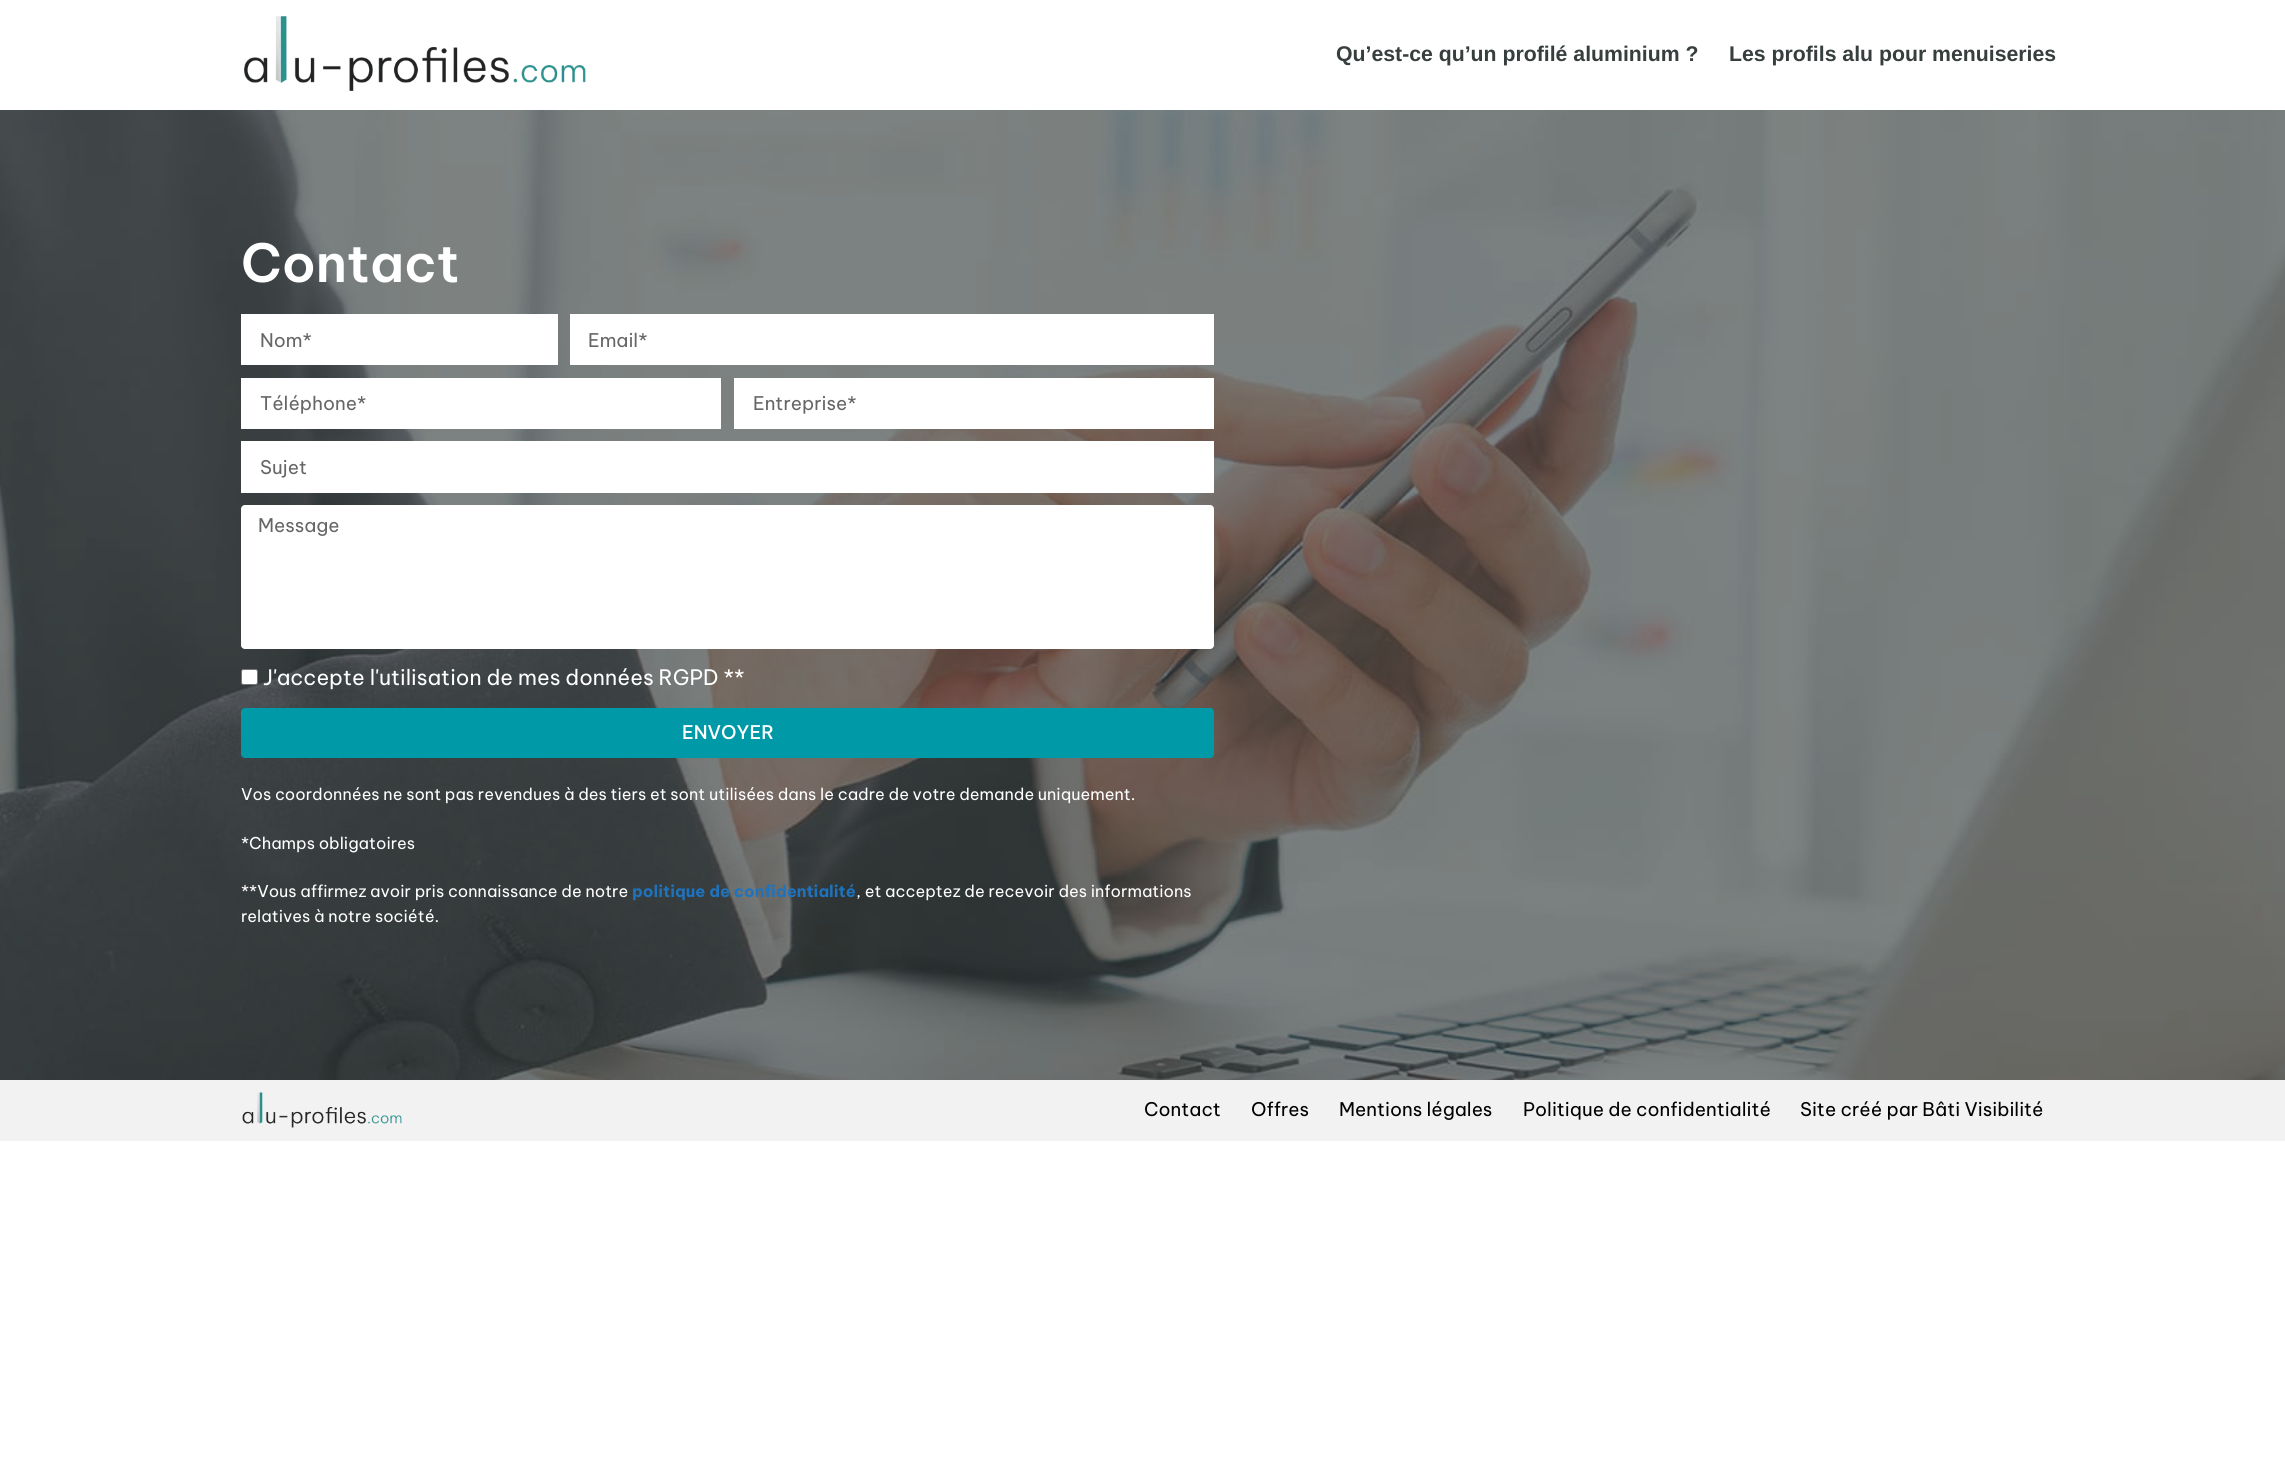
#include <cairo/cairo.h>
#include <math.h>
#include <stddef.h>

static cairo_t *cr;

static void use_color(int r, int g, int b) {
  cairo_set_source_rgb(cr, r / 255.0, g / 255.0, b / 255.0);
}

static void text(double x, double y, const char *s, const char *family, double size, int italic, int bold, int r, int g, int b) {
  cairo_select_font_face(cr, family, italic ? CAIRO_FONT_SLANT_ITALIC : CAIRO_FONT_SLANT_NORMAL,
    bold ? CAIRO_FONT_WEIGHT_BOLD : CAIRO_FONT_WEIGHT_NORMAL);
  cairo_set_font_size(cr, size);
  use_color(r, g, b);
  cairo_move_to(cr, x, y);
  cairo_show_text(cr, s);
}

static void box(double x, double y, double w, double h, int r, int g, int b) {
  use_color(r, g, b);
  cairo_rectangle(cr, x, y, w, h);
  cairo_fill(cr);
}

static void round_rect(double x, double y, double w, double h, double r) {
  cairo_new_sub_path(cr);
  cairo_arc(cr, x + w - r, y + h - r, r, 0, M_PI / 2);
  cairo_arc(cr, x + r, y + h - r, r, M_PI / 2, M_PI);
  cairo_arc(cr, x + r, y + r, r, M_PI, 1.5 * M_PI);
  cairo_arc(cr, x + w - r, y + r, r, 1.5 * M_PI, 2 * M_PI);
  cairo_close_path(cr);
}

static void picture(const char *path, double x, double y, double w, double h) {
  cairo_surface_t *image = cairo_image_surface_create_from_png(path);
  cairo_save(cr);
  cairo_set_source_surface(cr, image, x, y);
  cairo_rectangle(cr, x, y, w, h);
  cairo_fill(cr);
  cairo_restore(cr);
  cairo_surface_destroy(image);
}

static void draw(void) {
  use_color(255, 255, 255);
  cairo_paint(cr);
  picture("img_01.png", 244, 16, 342, 75);
  picture("img_02.png", 0, 110, 2285, 970);
  box(241, 314, 317, 51, 255, 255, 255);
  box(570, 314, 644, 51, 255, 255, 255);
  box(241, 378, 480, 51, 255, 255, 255);
  box(734, 378, 480, 51, 255, 255, 255);
  box(241, 441, 973, 52, 255, 255, 255);
  round_rect(241, 505, 973, 144, 4);
  cairo_fill(cr);
  round_rect(241.5, 669.5, 16, 15, 2);
  cairo_fill_preserve(cr);
  use_color(118, 118, 118);
  cairo_set_line_width(cr, 1);
  cairo_stroke(cr);
  use_color(0, 153, 167);
  round_rect(241, 708, 973, 50, 4);
  cairo_fill(cr);
  box(0, 1080, 2285, 61, 242, 242, 242);
  picture("img_03.png", 242, 1092, 160, 36);
  text(1336, 61, "Qu’est-ce qu’un profilé aluminium ?", "Liberation Sans", 21.25, 0, 1, 55, 63, 62);
  text(1729, 61, "Les profils alu pour menuiseries", "Liberation Sans", 21.25, 0, 1, 55, 63, 62);
  text(241, 282, "Contact", "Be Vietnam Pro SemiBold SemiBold", 52.5, 0, 0, 255, 255, 255);
  text(260, 347, "Nom*", "Be Vietnam Pro", 18.75, 0, 0, 102, 102, 102);
  text(588, 347, "Email*", "Be Vietnam Pro", 18.75, 0, 0, 102, 102, 102);
  text(260, 410, "Téléphone*", "Be Vietnam Pro", 18.75, 0, 0, 102, 102, 102);
  text(753, 410, "Entreprise*", "Be Vietnam Pro", 18.75, 0, 0, 102, 102, 102);
  text(260, 474, "Sujet", "Be Vietnam Pro", 18.75, 0, 0, 102, 102, 102);
  text(258, 532, "Message", "Be Vietnam Pro", 18.75, 0, 0, 102, 102, 102);
  text(263, 685, "J'accepte l'utilisation de mes données RGPD **", "Be Vietnam Pro", 21.25, 0, 0, 255, 255, 255);
  text(682, 739, "ENVOYER", "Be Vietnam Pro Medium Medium", 18.75, 0, 0, 255, 255, 255);
  text(241, 800, "Vos coordonnées ne sont pas revendues à des tiers et sont utilisées dans le cadre de votre demande uniquement.", "Be Vietnam Pro", 16.25, 0, 0, 255, 255, 255);
  text(241, 849, "*Champs obligatoires", "Be Vietnam Pro", 16.25, 0, 0, 255, 255, 255);
  text(241, 897, "**Vous affirmez avoir pris connaissance de notre", "Be Vietnam Pro", 16.25, 0, 0, 255, 255, 255);
  text(632, 897, "politique de confidentialité", "Be Vietnam Pro", 16.25, 0, 1, 30, 115, 190);
  text(856, 897, ", et acceptez de recevoir des informations", "Be Vietnam Pro", 16.25, 0, 0, 255, 255, 255);
  text(241, 922, "relatives à notre société.", "Be Vietnam Pro", 16.25, 0, 0, 255, 255, 255);
  text(1144, 1116, "Contact", "Be Vietnam Pro", 18.75, 0, 0, 0, 0, 0);
  text(1251, 1116, "Offres", "Be Vietnam Pro", 18.75, 0, 0, 0, 0, 0);
  text(1339, 1116, "Mentions légales", "Be Vietnam Pro", 18.75, 0, 0, 0, 0, 0);
  text(1523, 1116, "Politique de confidentialité", "Be Vietnam Pro", 18.75, 0, 0, 0, 0, 0);
  text(1800, 1116, "Site créé par Bâti Visibilité", "Be Vietnam Pro", 18.75, 0, 0, 0, 0, 0);
}

int main(void) {
  cairo_surface_t *surface = cairo_image_surface_create(CAIRO_FORMAT_RGB24, 2285, 1471);
  cr = cairo_create(surface);
  cairo_font_options_t *options = cairo_font_options_create();
  cairo_font_options_set_hint_metrics(options, CAIRO_HINT_METRICS_OFF);
  cairo_font_options_set_hint_style(options, CAIRO_HINT_STYLE_NONE);
  cairo_set_font_options(cr, options);
  cairo_set_miter_limit(cr, 4);
  draw();
  cairo_surface_write_to_png(surface, "out.png");
  cairo_font_options_destroy(options);
  cairo_destroy(cr);
  cairo_surface_destroy(surface);
  return 0;
}
